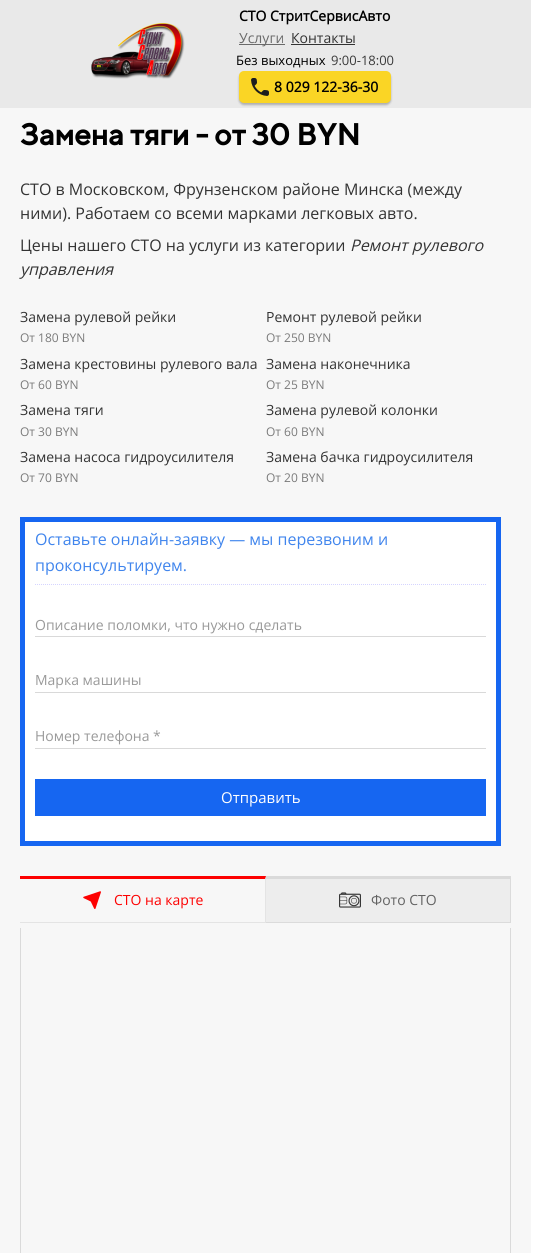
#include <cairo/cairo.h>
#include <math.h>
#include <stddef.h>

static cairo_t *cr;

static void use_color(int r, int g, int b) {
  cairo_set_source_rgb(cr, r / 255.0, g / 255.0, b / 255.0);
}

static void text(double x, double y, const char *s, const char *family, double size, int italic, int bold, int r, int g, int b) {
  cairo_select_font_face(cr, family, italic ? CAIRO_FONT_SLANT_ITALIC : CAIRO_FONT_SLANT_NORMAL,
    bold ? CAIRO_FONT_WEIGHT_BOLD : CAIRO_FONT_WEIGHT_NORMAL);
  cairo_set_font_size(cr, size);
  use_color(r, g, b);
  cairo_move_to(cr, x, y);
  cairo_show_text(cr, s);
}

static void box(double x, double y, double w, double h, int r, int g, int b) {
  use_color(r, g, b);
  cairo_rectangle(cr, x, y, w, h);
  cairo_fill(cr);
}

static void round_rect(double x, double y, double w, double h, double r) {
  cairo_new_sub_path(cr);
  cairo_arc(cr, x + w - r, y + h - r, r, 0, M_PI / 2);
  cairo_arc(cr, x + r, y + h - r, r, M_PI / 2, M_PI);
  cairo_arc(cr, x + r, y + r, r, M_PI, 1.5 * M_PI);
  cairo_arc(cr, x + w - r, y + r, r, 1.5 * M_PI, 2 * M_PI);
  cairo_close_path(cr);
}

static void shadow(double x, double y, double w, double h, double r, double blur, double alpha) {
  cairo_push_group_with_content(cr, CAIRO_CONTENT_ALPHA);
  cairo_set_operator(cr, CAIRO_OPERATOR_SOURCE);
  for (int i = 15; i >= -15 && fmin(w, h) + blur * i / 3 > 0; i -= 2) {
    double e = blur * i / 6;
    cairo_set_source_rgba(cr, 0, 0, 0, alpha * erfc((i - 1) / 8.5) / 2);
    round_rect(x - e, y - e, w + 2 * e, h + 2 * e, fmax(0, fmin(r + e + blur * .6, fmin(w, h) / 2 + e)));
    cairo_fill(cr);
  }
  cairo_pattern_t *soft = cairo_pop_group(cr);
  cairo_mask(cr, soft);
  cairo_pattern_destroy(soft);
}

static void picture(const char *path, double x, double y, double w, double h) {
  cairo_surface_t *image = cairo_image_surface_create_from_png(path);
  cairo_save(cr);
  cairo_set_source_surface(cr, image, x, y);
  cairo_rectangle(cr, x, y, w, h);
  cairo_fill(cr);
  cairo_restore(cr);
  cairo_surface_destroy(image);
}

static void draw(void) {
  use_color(255, 255, 255);
  cairo_paint(cr);
  box(0, 0, 531, 108, 233, 233, 233);
  picture("img_01.png", 91, 23, 94, 56);
  box(239, 44, 46, 1, 106, 106, 106);
  box(291, 44, 64, 1, 51, 51, 51);
  box(0, 108, 531, 1145, 247, 247, 247);
  use_color(0, 0, 0);
  shadow(239, 73, 152, 32, 5, 1, 0.25);
  use_color(250, 213, 37);
  round_rect(239, 71, 152, 32, 5);
  cairo_fill(cr);
  picture("img_02.png", 251, 78, 18, 18);
  use_color(255, 255, 255);
  cairo_rectangle(cr, 22.5, 519.5, 476, 324);
  cairo_fill_preserve(cr);
  use_color(22, 102, 241);
  cairo_set_line_width(cr, 5);
  cairo_stroke(cr);
  cairo_new_path(cr);
  cairo_move_to(cr, 35, 584.5);
  cairo_line_to(cr, 486, 584.5);
  use_color(213, 212, 255);
  cairo_set_line_width(cr, 1);
  cairo_set_dash(cr, (double[]){1, 1}, 2, 0);
  cairo_stroke(cr);
  box(35, 636, 451, 1, 217, 217, 217);
  box(35, 692, 451, 1, 217, 217, 217);
  box(35, 748, 451, 1, 217, 217, 217);
  box(35, 779, 451, 37, 22, 102, 241);
  use_color(253, 1, 1);
  cairo_new_path(cr);
  cairo_move_to(cr, 20, 876);
  cairo_line_to(cr, 266, 876);
  cairo_line_to(cr, 265, 879);
  cairo_line_to(cr, 20, 879);
  cairo_close_path(cr);
  cairo_fill(cr);
  cairo_set_source_rgba(cr, 0.2, 0.2, 0.2, 0.1);
  cairo_new_path(cr);
  cairo_move_to(cr, 266, 876);
  cairo_line_to(cr, 266, 923);
  cairo_line_to(cr, 265, 922);
  cairo_line_to(cr, 265, 879);
  cairo_close_path(cr);
  cairo_fill(cr);
  cairo_new_path(cr);
  cairo_move_to(cr, 266, 923);
  cairo_line_to(cr, 20, 923);
  cairo_line_to(cr, 20, 922);
  cairo_line_to(cr, 265, 922);
  cairo_close_path(cr);
  cairo_fill(cr);
  picture("img_03.png", 83, 891, 18, 18);
  box(266, 876, 245, 47, 237, 237, 237);
  use_color(218, 218, 218);
  cairo_new_path(cr);
  cairo_move_to(cr, 266, 876);
  cairo_line_to(cr, 511, 876);
  cairo_line_to(cr, 510, 879);
  cairo_line_to(cr, 266, 879);
  cairo_close_path(cr);
  cairo_fill(cr);
  cairo_set_source_rgba(cr, 0.2, 0.2, 0.2, 0.1);
  cairo_new_path(cr);
  cairo_move_to(cr, 511, 876);
  cairo_line_to(cr, 511, 923);
  cairo_line_to(cr, 510, 922);
  cairo_line_to(cr, 510, 879);
  cairo_close_path(cr);
  cairo_fill(cr);
  cairo_new_path(cr);
  cairo_move_to(cr, 511, 923);
  cairo_line_to(cr, 266, 923);
  cairo_line_to(cr, 266, 922);
  cairo_line_to(cr, 510, 922);
  cairo_close_path(cr);
  cairo_fill(cr);
  picture("img_04.png", 339, 892, 22, 16);
  use_color(218, 218, 218);
  cairo_new_path(cr);
  cairo_move_to(cr, 511, 928);
  cairo_line_to(cr, 511, 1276);
  cairo_line_to(cr, 510, 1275);
  cairo_line_to(cr, 510, 928);
  cairo_close_path(cr);
  cairo_fill(cr);
  cairo_new_path(cr);
  cairo_move_to(cr, 20, 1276);
  cairo_line_to(cr, 20, 928);
  cairo_line_to(cr, 21, 928);
  cairo_line_to(cr, 21, 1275);
  cairo_close_path(cr);
  cairo_fill(cr);
  text(239, 21, "СТО СтритСервисАвто", "Open Sans", 14, 0, 1, 0, 0, 0);
  text(239, 43, "Услуги", "Open Sans", 14, 0, 0, 106, 106, 106);
  text(291, 43, "Контакты", "Open Sans", 14, 0, 0, 51, 51, 51);
  text(236, 65, "Без выходных", "Open Sans", 13, 0, 0, 0, 0, 0);
  text(331, 65, "9:00-18:00", "Open Sans", 13, 0, 0, 58, 58, 58);
  text(274, 92, "8 029 122-36-30", "Open Sans", 14, 0, 1, 0, 0, 0);
  text(20, 145, "Замена тяги - от 30 BYN", "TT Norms", 30, 0, 1, 0, 0, 0);
  text(20, 195, "СТО в Московском, Фрунзенском районе Минска (между", "Open Sans", 16, 0, 0, 51, 51, 51);
  text(20, 219, "ними). Работаем со всеми марками легковых авто.", "Open Sans", 16, 0, 0, 51, 51, 51);
  text(20, 251, "Цены нашего СТО на услуги из категории", "Open Sans", 16, 0, 0, 51, 51, 51);
  text(350, 251, "Ремонт рулевого", "Open Sans", 16, 1, 0, 51, 51, 51);
  text(20, 275, "управления", "Open Sans", 16, 1, 0, 51, 51, 51);
  text(20, 322, "Замена рулевой рейки", "Open Sans", 14, 0, 0, 51, 51, 51);
  text(20, 342, "От 180 BYN", "Open Sans", 12, 0, 0, 122, 122, 122);
  text(266, 322, "Ремонт рулевой рейки", "Open Sans", 14, 0, 0, 51, 51, 51);
  text(266, 342, "От 250 BYN", "Open Sans", 12, 0, 0, 122, 122, 122);
  text(20, 369, "Замена крестовины рулевого вала", "Open Sans", 14, 0, 0, 51, 51, 51);
  text(20, 389, "От 60 BYN", "Open Sans", 12, 0, 0, 122, 122, 122);
  text(266, 369, "Замена наконечника", "Open Sans", 14, 0, 0, 51, 51, 51);
  text(266, 389, "От 25 BYN", "Open Sans", 12, 0, 0, 122, 122, 122);
  text(20, 415, "Замена тяги", "Open Sans", 14, 0, 0, 51, 51, 51);
  text(20, 436, "От 30 BYN", "Open Sans", 12, 0, 0, 122, 122, 122);
  text(266, 415, "Замена рулевой колонки", "Open Sans", 14, 0, 0, 51, 51, 51);
  text(266, 436, "От 60 BYN", "Open Sans", 12, 0, 0, 122, 122, 122);
  text(20, 462, "Замена насоса гидроусилителя", "Open Sans", 14, 0, 0, 51, 51, 51);
  text(20, 482, "От 70 BYN", "Open Sans", 12, 0, 0, 122, 122, 122);
  text(266, 462, "Замена бачка гидроусилителя", "Open Sans", 14, 0, 0, 51, 51, 51);
  text(266, 482, "От 20 BYN", "Open Sans", 12, 0, 0, 122, 122, 122);
  text(35, 545, "Оставьте онлайн-заявку — мы перезвоним и", "Open Sans", 16, 0, 0, 64, 133, 237);
  text(35, 571, "проконсультируем.", "Open Sans", 16, 0, 0, 64, 133, 237);
  text(35, 630, "Описание поломки, что нужно сделать", "Open Sans", 14, 0, 0, 153, 153, 153);
  text(35, 685, "Марка машины", "Open Sans", 14, 0, 0, 153, 153, 153);
  text(35, 741, "Номер телефона *", "Open Sans", 14, 0, 0, 153, 153, 153);
  text(221, 803, "Отправить", "Open Sans", 15, 0, 0, 255, 255, 255);
  text(114, 905, "СТО на карте", "Open Sans", 14, 0, 0, 253, 1, 1);
  text(371, 905, "Фото СТО", "Open Sans", 14, 0, 0, 98, 98, 98);
}

int main(void) {
  cairo_surface_t *surface = cairo_image_surface_create(CAIRO_FORMAT_RGB24, 546, 1253);
  cr = cairo_create(surface);
  cairo_font_options_t *options = cairo_font_options_create();
  cairo_font_options_set_hint_metrics(options, CAIRO_HINT_METRICS_OFF);
  cairo_font_options_set_hint_style(options, CAIRO_HINT_STYLE_NONE);
  cairo_set_font_options(cr, options);
  cairo_set_miter_limit(cr, 4);
  draw();
  cairo_surface_write_to_png(surface, "out.png");
  cairo_font_options_destroy(options);
  cairo_destroy(cr);
  cairo_surface_destroy(surface);
  return 0;
}
